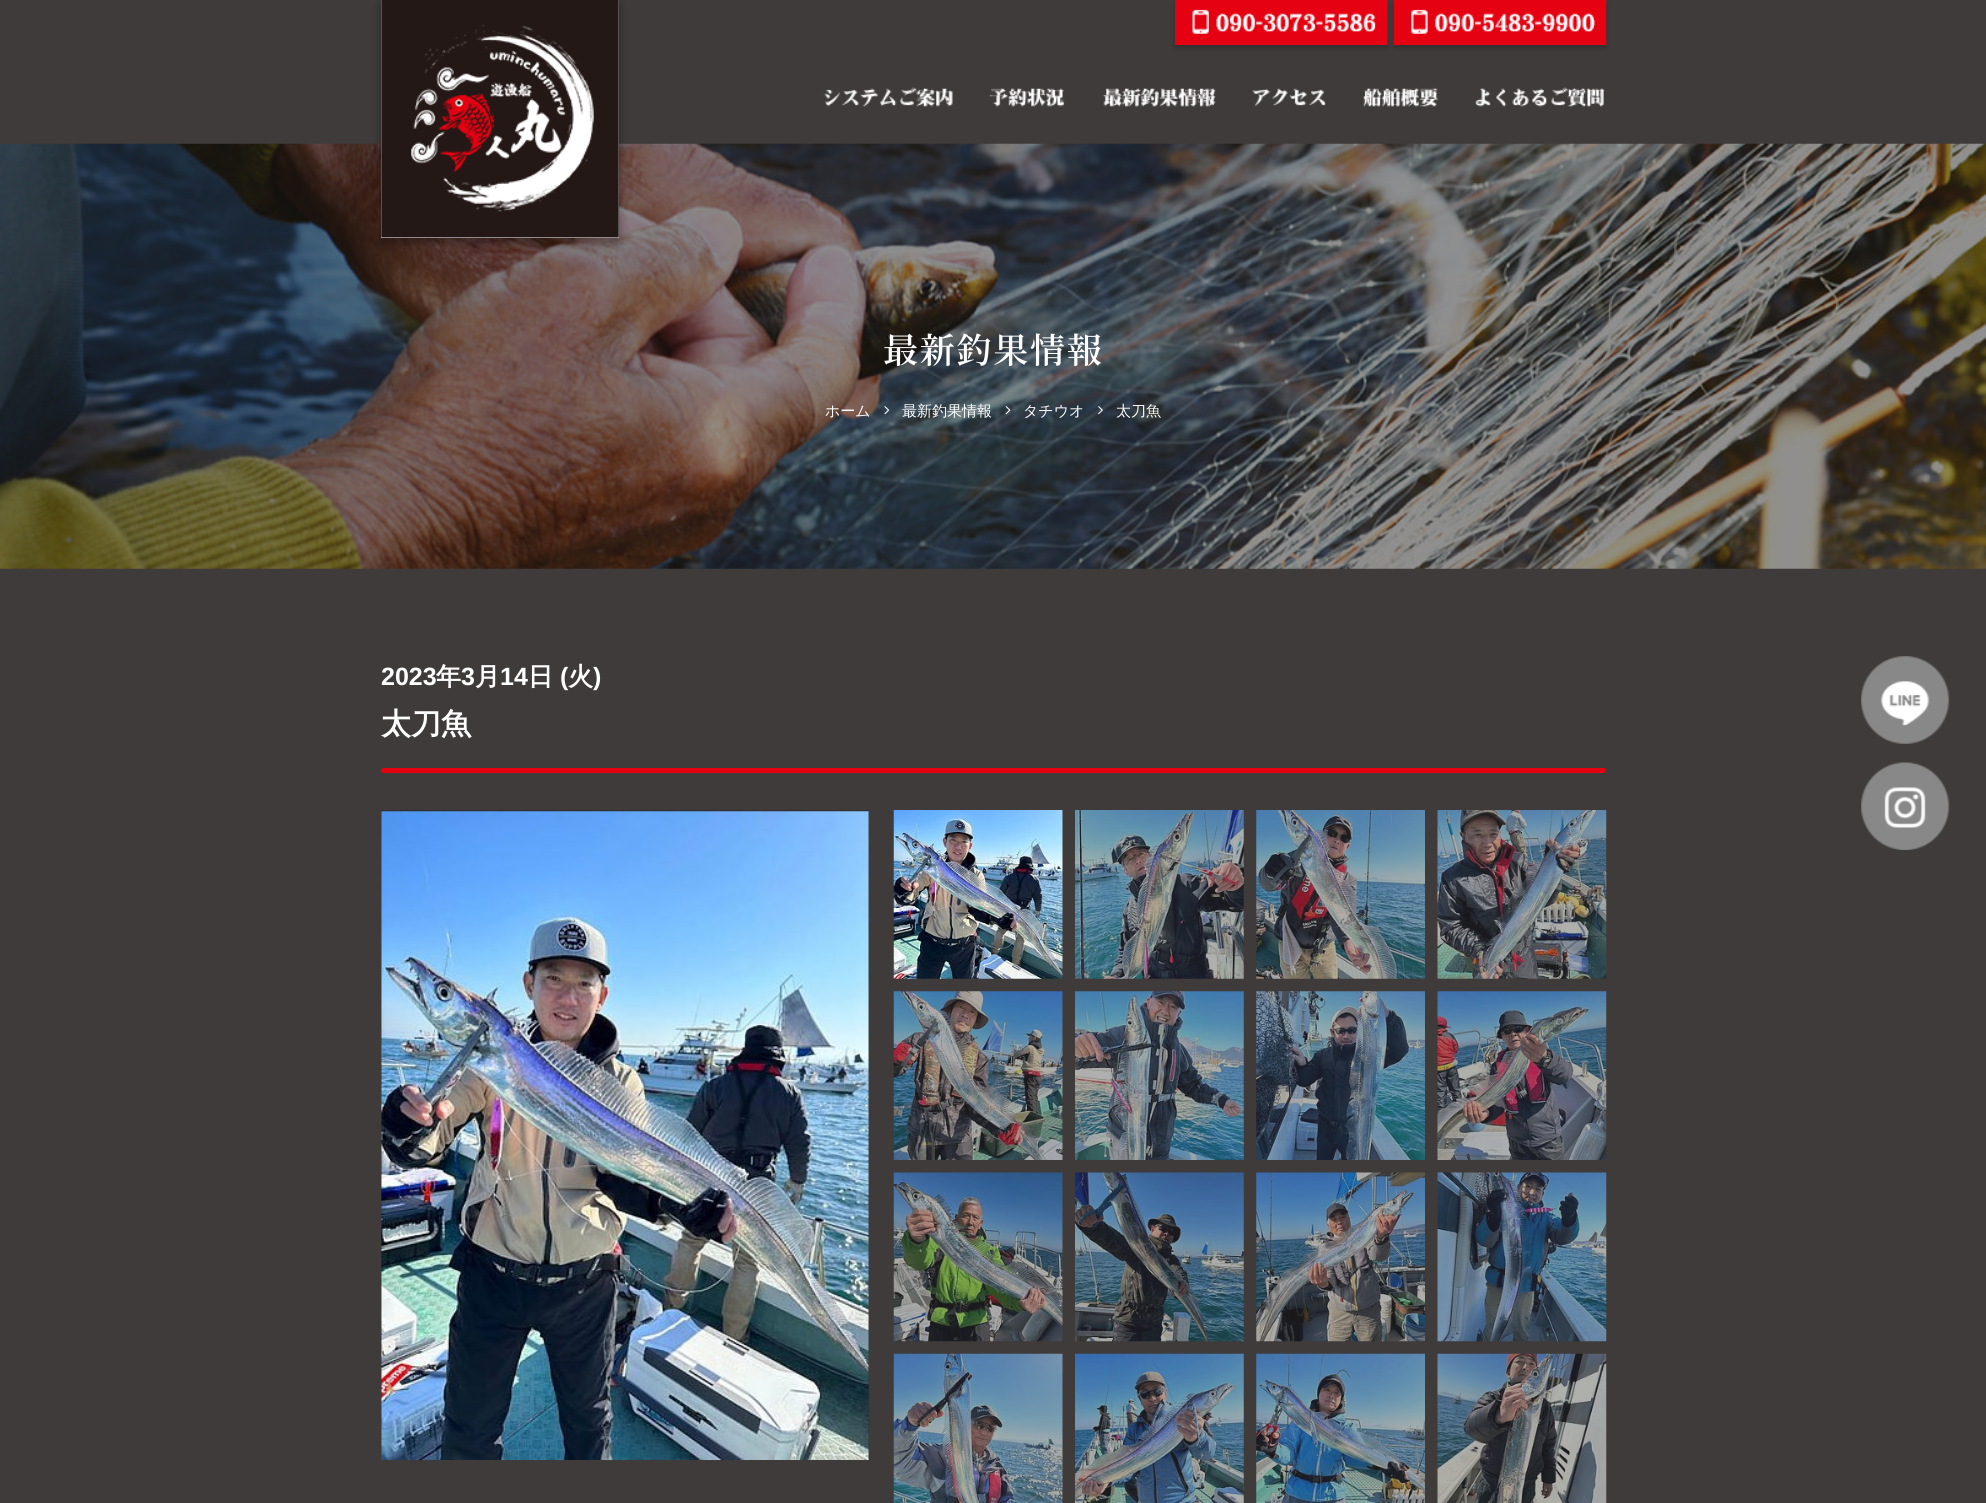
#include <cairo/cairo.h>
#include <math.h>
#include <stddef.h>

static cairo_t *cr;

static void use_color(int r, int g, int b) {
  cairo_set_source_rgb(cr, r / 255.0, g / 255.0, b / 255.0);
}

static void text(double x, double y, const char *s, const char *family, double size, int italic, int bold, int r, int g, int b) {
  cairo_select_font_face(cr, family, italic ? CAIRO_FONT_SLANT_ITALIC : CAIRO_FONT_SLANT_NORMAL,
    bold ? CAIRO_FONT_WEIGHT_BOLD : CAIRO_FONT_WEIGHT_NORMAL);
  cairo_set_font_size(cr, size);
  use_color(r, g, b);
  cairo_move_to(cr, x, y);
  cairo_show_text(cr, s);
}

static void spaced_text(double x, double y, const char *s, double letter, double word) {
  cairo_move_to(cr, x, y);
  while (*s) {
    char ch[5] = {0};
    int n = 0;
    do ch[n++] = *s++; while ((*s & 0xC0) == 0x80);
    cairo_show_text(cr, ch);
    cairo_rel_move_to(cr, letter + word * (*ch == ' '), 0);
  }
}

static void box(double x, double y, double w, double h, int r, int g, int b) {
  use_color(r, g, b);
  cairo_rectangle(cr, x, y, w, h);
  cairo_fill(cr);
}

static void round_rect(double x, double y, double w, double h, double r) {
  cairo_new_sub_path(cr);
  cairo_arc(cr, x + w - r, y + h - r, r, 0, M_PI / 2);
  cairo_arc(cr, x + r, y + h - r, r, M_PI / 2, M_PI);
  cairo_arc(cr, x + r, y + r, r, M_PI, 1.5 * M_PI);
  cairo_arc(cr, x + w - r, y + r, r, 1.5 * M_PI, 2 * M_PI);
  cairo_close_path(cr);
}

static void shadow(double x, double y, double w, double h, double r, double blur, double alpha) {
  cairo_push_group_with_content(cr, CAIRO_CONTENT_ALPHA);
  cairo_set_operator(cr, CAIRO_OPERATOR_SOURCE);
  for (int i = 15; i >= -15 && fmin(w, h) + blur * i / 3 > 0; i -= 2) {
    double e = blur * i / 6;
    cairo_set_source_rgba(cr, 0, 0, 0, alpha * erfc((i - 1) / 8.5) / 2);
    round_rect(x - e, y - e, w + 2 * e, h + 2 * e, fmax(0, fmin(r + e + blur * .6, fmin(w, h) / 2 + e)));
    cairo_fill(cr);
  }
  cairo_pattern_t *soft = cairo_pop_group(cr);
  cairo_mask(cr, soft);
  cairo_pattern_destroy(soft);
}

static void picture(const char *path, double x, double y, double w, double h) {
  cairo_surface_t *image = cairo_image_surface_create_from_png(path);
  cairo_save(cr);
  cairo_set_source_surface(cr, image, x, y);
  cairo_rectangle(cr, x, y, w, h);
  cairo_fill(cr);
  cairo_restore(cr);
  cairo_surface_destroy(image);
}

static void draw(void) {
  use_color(63, 59, 58);
  cairo_paint(cr);
  picture("img_10.png", 0, 143, 1986, 426);
  use_color(0, 0, 0);
  shadow(381, 5, 238, 238, 0, 5, 0.35);
  box(381, 0, 238, 238, 255, 255, 255);
  picture("img_01.png", 381, 0, 238, 238);
  use_color(0, 0, 0);
  shadow(1175, 3, 213, 45, 0, 2.5, 0.2);
  picture("img_02.png", 1175, 0, 213, 45);
  shadow(1394, 3, 212, 45, 0, 2.5, 0.2);
  picture("img_03.png", 1393, 0, 214, 45);
  picture("img_04.png", 823, 87, 131, 20);
  picture("img_05.png", 989, 88, 76, 19);
  picture("img_06.png", 1102, 88, 114, 19);
  picture("img_07.png", 1252, 88, 74, 19);
  picture("img_08.png", 1363, 87, 75, 20);
  picture("img_09.png", 1475, 87, 130, 20);
  picture("img_11.png", 884, 406, 6, 9);
  picture("img_12.png", 1005, 406, 6, 9);
  picture("img_13.png", 1098, 406, 5, 9);
  use_color(229, 0, 18);
  round_rect(381, 768, 1225, 5, 2.5);
  cairo_fill(cr);
  box(381, 810, 488, 650, 50, 47, 46);
  picture("img_14.png", 381, 811, 488, 649);
  picture("img_15.png", 893, 810, 170, 169);
  picture("img_16.png", 1075, 810, 169, 169);
  picture("img_17.png", 1256, 810, 169, 169);
  picture("img_18.png", 1437, 810, 170, 169);
  picture("img_19.png", 893, 991, 170, 169);
  picture("img_20.png", 1075, 991, 169, 169);
  picture("img_21.png", 1256, 991, 169, 169);
  picture("img_22.png", 1437, 991, 170, 169);
  picture("img_23.png", 893, 1172, 170, 170);
  picture("img_24.png", 1075, 1172, 169, 170);
  picture("img_25.png", 1256, 1172, 169, 170);
  picture("img_26.png", 1437, 1172, 170, 170);
  picture("img_27.png", 893, 1353, 170, 150);
  picture("img_28.png", 1075, 1353, 169, 150);
  picture("img_29.png", 1256, 1353, 169, 150);
  picture("img_30.png", 1437, 1353, 170, 150);
  picture("img_31.png", 1861, 656, 89, 88);
  picture("img_32.png", 1861, 762, 89, 88);
  cairo_select_font_face(cr, "Noto Serif JP ExtraLight", CAIRO_FONT_SLANT_NORMAL, CAIRO_FONT_WEIGHT_NORMAL);
  cairo_set_font_size(cr, 35);
  use_color(255, 255, 255);
  spaced_text(883, 363, "最新釣果情報", 1.75, 0);
  text(825, 416, "ホーム", "WenQuanYi Zen Hei Medium", 15, 0, 0, 255, 255, 255);
  text(902, 416, "最新釣果情報", "WenQuanYi Zen Hei Medium", 15, 0, 0, 255, 255, 255);
  text(1023, 416, "タチウオ", "WenQuanYi Zen Hei Medium", 15, 0, 0, 255, 255, 255);
  text(1116, 416, "太刀魚", "WenQuanYi Zen Hei Medium", 15, 0, 0, 255, 255, 255);
  text(381, 685, "2023", "Liberation Sans", 25, 0, 1, 255, 255, 255);
  text(436, 685, "年", "WenQuanYi Zen Hei", 25, 0, 1, 255, 255, 255);
  text(461, 685, "3", "Liberation Sans", 25, 0, 1, 255, 255, 255);
  text(475, 685, "月", "WenQuanYi Zen Hei", 25, 0, 1, 255, 255, 255);
  text(500, 685, "14", "Liberation Sans", 25, 0, 1, 255, 255, 255);
  text(528, 685, "日", "WenQuanYi Zen Hei", 25, 0, 1, 255, 255, 255);
  text(560, 685, "(", "Liberation Sans", 25, 0, 1, 255, 255, 255);
  text(568, 685, "火", "WenQuanYi Zen Hei", 25, 0, 1, 255, 255, 255);
  text(593, 685, ")", "Liberation Sans", 25, 0, 1, 255, 255, 255);
  text(381, 734, "太刀魚", "WenQuanYi Zen Hei", 30, 0, 1, 255, 255, 255);
}

int main(void) {
  cairo_surface_t *surface = cairo_image_surface_create(CAIRO_FORMAT_RGB24, 1986, 1503);
  cr = cairo_create(surface);
  cairo_font_options_t *options = cairo_font_options_create();
  cairo_font_options_set_hint_metrics(options, CAIRO_HINT_METRICS_OFF);
  cairo_font_options_set_hint_style(options, CAIRO_HINT_STYLE_NONE);
  cairo_set_font_options(cr, options);
  cairo_set_miter_limit(cr, 4);
  draw();
  cairo_surface_write_to_png(surface, "out.png");
  cairo_font_options_destroy(options);
  cairo_destroy(cr);
  cairo_surface_destroy(surface);
  return 0;
}
